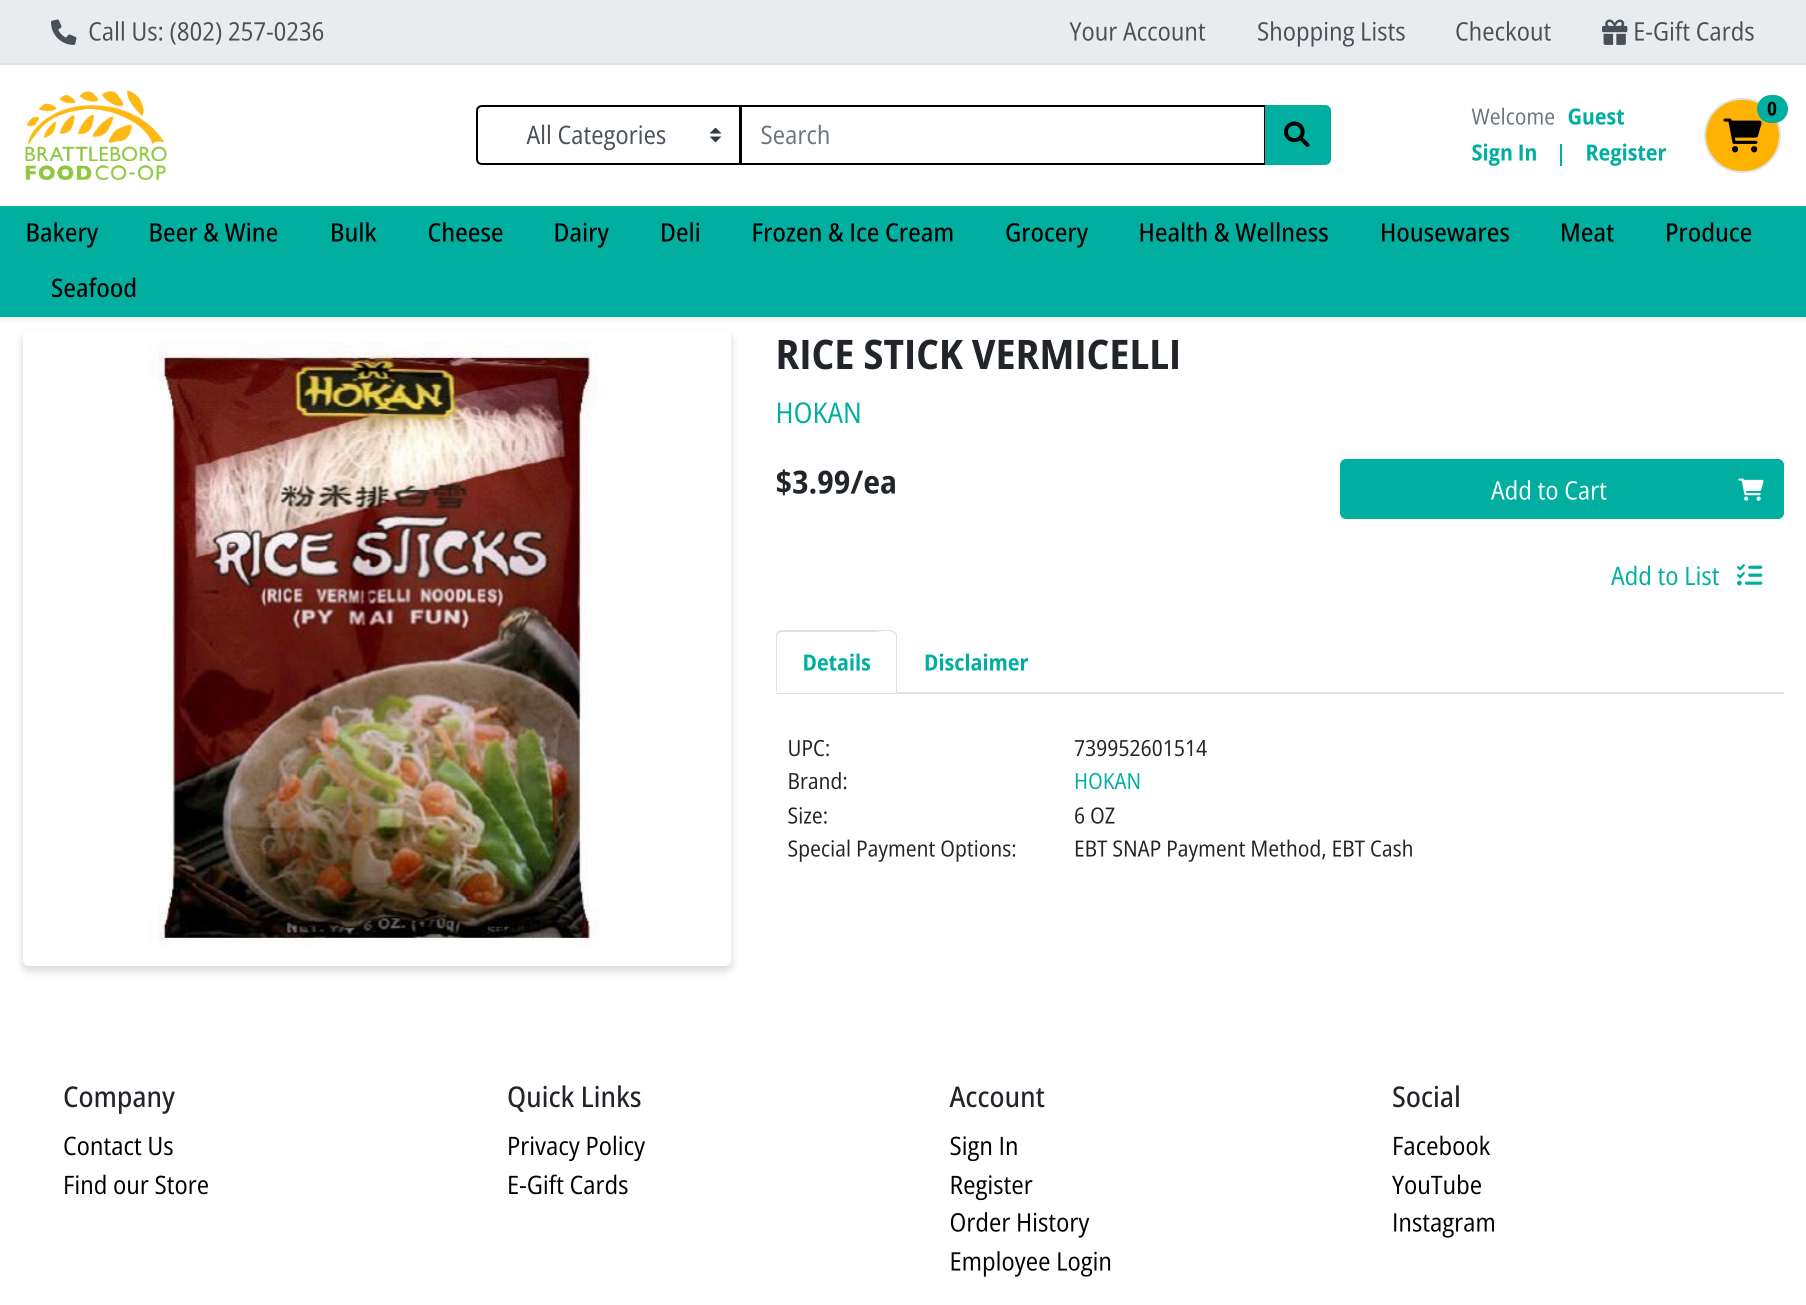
#include <cairo/cairo.h>
#include <math.h>
#include <stddef.h>

static cairo_t *cr;

static void use_color(int r, int g, int b) {
  cairo_set_source_rgb(cr, r / 255.0, g / 255.0, b / 255.0);
}

static void box(double x, double y, double w, double h, int r, int g, int b) {
  use_color(r, g, b);
  cairo_rectangle(cr, x, y, w, h);
  cairo_fill(cr);
}

static void round_rect(double x, double y, double w, double h, double r) {
  cairo_new_sub_path(cr);
  cairo_arc(cr, x + w - r, y + h - r, r, 0, M_PI / 2);
  cairo_arc(cr, x + r, y + h - r, r, M_PI / 2, M_PI);
  cairo_arc(cr, x + r, y + r, r, M_PI, 1.5 * M_PI);
  cairo_arc(cr, x + w - r, y + r, r, 1.5 * M_PI, 2 * M_PI);
  cairo_close_path(cr);
}

static void shadow(double x, double y, double w, double h, double r, double blur, double alpha) {
  cairo_push_group_with_content(cr, CAIRO_CONTENT_ALPHA);
  cairo_set_operator(cr, CAIRO_OPERATOR_SOURCE);
  for (int i = 15; i >= -15 && fmin(w, h) + blur * i / 3 > 0; i -= 2) {
    double e = blur * i / 6;
    cairo_set_source_rgba(cr, 0, 0, 0, alpha * erfc((i - 1) / 8.5) / 2);
    round_rect(x - e, y - e, w + 2 * e, h + 2 * e, fmax(0, fmin(r + e + blur * .6, fmin(w, h) / 2 + e)));
    cairo_fill(cr);
  }
  cairo_pattern_t *soft = cairo_pop_group(cr);
  cairo_mask(cr, soft);
  cairo_pattern_destroy(soft);
}

static void picture(const char *path, double x, double y, double w, double h) {
  cairo_surface_t *image = cairo_image_surface_create_from_png(path);
  cairo_save(cr);
  cairo_set_source_surface(cr, image, x, y);
  cairo_rectangle(cr, x, y, w, h);
  cairo_fill(cr);
  cairo_restore(cr);
  cairo_surface_destroy(image);
}

static void draw(void) {
  use_color(255, 255, 255);
  cairo_paint(cr);
  use_color(0, 0, 0);
  shadow(0, 3, 1806, 317, 0, 3, 0.07);
  box(0, 65, 1806, 141, 255, 255, 255);
  box(0, 0, 1806, 63, 233, 236, 239);
  box(0, 63, 1806, 2, 222, 226, 230);
  picture("img_01.png", 51, 19, 26, 26);
  picture("img_02.png", 89, 21, 235, 24);
  picture("img_03.png", 1069, 22, 137, 19);
  picture("img_04.png", 1258, 21, 147, 26);
  picture("img_05.png", 1456, 21, 95, 20);
  picture("img_06.png", 1602, 19, 26, 26);
  picture("img_07.png", 1635, 21, 119, 20);
  picture("img_08.png", 25, 90, 142, 90);
  cairo_rectangle(cr, 741, 106, 524, 58);
  use_color(0, 0, 0);
  cairo_stroke(cr);
  use_color(255, 255, 255);
  cairo_new_path(cr);
  cairo_move_to(cr, 482, 105);
  cairo_line_to(cr, 741, 105);
  cairo_line_to(cr, 741, 165);
  cairo_line_to(cr, 482, 165);
  cairo_curve_to(cr, 478.5, 165, 476, 162.5, 476, 159);
  cairo_line_to(cr, 476, 111);
  cairo_curve_to(cr, 476, 107.5, 478.5, 105, 482, 105);
  cairo_close_path(cr);
  cairo_fill(cr);
  picture("img_09.png", 710, 128, 12, 15);
  cairo_new_path(cr);
  cairo_move_to(cr, 482, 106);
  cairo_line_to(cr, 740, 106);
  cairo_line_to(cr, 740, 164);
  cairo_line_to(cr, 482, 164);
  cairo_curve_to(cr, 479, 164, 477, 162, 477, 159);
  cairo_line_to(cr, 477, 111);
  cairo_curve_to(cr, 477, 108, 479, 106, 482, 106);
  cairo_close_path(cr);
  use_color(0, 0, 0);
  cairo_stroke(cr);
  picture("img_10.png", 526, 124, 140, 27);
  picture("img_11.png", 761, 124, 68, 21);
  use_color(0, 175, 160);
  cairo_new_path(cr);
  cairo_move_to(cr, 1266, 106);
  cairo_line_to(cr, 1325, 106);
  cairo_curve_to(cr, 1328, 106, 1330, 108, 1330, 111);
  cairo_line_to(cr, 1330, 159);
  cairo_curve_to(cr, 1330, 162, 1328, 164, 1325, 164);
  cairo_line_to(cr, 1266, 164);
  cairo_close_path(cr);
  cairo_fill_preserve(cr);
  cairo_stroke(cr);
  picture("img_12.png", 1284, 121, 26, 26);
  picture("img_13.png", 1471, 107, 84, 18);
  picture("img_14.png", 1568, 108, 57, 17);
  picture("img_15.png", 1472, 143, 64, 23);
  box(1560, 144, 2, 22, 0, 175, 160);
  picture("img_16.png", 1587, 143, 80, 23);
  use_color(255, 179, 0);
  round_rect(1705, 99, 75, 73, 36.5);
  cairo_fill_preserve(cr);
  use_color(222, 226, 230);
  cairo_stroke(cr);
  picture("img_18.png", 1723, 118, 39, 35);
  use_color(0, 175, 160);
  round_rect(1757, 95, 31, 28, 14);
  cairo_fill(cr);
  picture("img_17.png", 1767, 101, 10, 15);
  box(0, 206, 1806, 111, 0, 175, 160);
  picture("img_19.png", 27, 222, 72, 26);
  picture("img_20.png", 150, 222, 128, 20);
  picture("img_21.png", 332, 222, 45, 20);
  picture("img_22.png", 428, 222, 75, 20);
  picture("img_23.png", 555, 222, 54, 26);
  picture("img_24.png", 662, 222, 38, 20);
  picture("img_25.png", 753, 223, 200, 19);
  picture("img_26.png", 1006, 223, 83, 25);
  picture("img_27.png", 1140, 222, 188, 20);
  picture("img_28.png", 1382, 223, 127, 19);
  picture("img_29.png", 1562, 223, 52, 19);
  picture("img_30.png", 1667, 222, 85, 20);
  picture("img_31.png", 52, 277, 84, 21);
  use_color(0, 0, 0);
  shadow(23, 335, 708, 636, 6, 4.5, 0.16);
  use_color(255, 255, 255);
  round_rect(23, 330, 708, 636, 6);
  cairo_fill(cr);
  picture("img_32.png", 149, 342, 450, 607);
  picture("img_33.png", 778, 339, 400, 31);
  picture("img_34.png", 777, 402, 83, 22);
  picture("img_35.png", 776, 469, 119, 27);
  use_color(0, 175, 160);
  round_rect(1341, 460, 442, 58, 5);
  cairo_fill_preserve(cr);
  cairo_stroke(cr);
  picture("img_36.png", 1491, 480, 116, 20);
  picture("img_37.png", 1738, 478, 26, 23);
  picture("img_38.png", 1611, 565, 108, 21);
  picture("img_39.png", 1737, 564, 26, 22);
  box(776, 692, 1008, 2, 222, 226, 230);
  use_color(255, 255, 255);
  cairo_new_path(cr);
  cairo_move_to(cr, 782, 630);
  cairo_line_to(cr, 891, 630);
  cairo_curve_to(cr, 894.5, 630, 897, 632.5, 897, 636);
  cairo_line_to(cr, 897, 693);
  cairo_line_to(cr, 776, 693);
  cairo_line_to(cr, 776, 636);
  cairo_curve_to(cr, 776, 632.5, 778.5, 630, 782, 630);
  cairo_close_path(cr);
  cairo_fill(cr);
  use_color(222, 226, 230);
  cairo_new_path(cr);
  cairo_move_to(cr, 782, 630);
  cairo_curve_to(cr, 780, 630, 778, 631, 777, 632);
  cairo_line_to(cr, 779, 633);
  cairo_line_to(cr, 781, 632);
  cairo_line_to(cr, 873, 632);
  cairo_curve_to(cr, 880, 632, 888, 629, 894, 633);
  cairo_line_to(cr, 895, 632);
  cairo_curve_to(cr, 894, 631, 892, 630, 891, 630);
  cairo_close_path(cr);
  cairo_fill(cr);
  cairo_new_path(cr);
  cairo_move_to(cr, 897, 693);
  cairo_line_to(cr, 897, 636);
  cairo_curve_to(cr, 897, 634, 896, 633, 895, 632);
  cairo_line_to(cr, 894, 633);
  cairo_line_to(cr, 896, 636);
  cairo_line_to(cr, 896, 692);
  cairo_close_path(cr);
  cairo_fill(cr);
  use_color(255, 255, 255);
  cairo_new_path(cr);
  cairo_move_to(cr, 897, 693);
  cairo_line_to(cr, 896, 692);
  cairo_line_to(cr, 777, 692);
  cairo_line_to(cr, 776, 693);
  cairo_close_path(cr);
  cairo_fill(cr);
  use_color(222, 226, 230);
  cairo_new_path(cr);
  cairo_move_to(cr, 777, 632);
  cairo_curve_to(cr, 776, 633, 776, 635, 776, 636);
  cairo_line_to(cr, 776, 692);
  cairo_line_to(cr, 777, 692);
  cairo_line_to(cr, 777, 635);
  cairo_line_to(cr, 779, 633);
  cairo_close_path(cr);
  cairo_fill(cr);
  picture("img_40.png", 804, 653, 67, 18);
  picture("img_41.png", 925, 653, 104, 18);
  picture("img_42.png", 789, 739, 40, 18);
  picture("img_43.png", 1074, 739, 133, 18);
  picture("img_44.png", 789, 772, 58, 18);
  picture("img_45.png", 1075, 772, 65, 18);
  picture("img_46.png", 788, 807, 39, 17);
  picture("img_47.png", 1075, 807, 40, 17);
  picture("img_48.png", 788, 839, 228, 23);
  picture("img_49.png", 1075, 839, 337, 23);
  picture("img_50.png", 64, 1086, 111, 28);
  picture("img_51.png", 64, 1136, 109, 20);
  picture("img_52.png", 65, 1174, 143, 21);
  picture("img_53.png", 508, 1085, 133, 27);
  picture("img_54.png", 509, 1135, 136, 27);
  picture("img_55.png", 509, 1174, 119, 21);
  picture("img_56.png", 949, 1086, 96, 22);
  picture("img_57.png", 950, 1136, 67, 26);
  picture("img_58.png", 951, 1175, 82, 26);
  picture("img_59.png", 950, 1212, 140, 26);
  picture("img_60.png", 951, 1251, 160, 26);
  picture("img_61.png", 1393, 1085, 66, 23);
  picture("img_62.png", 1394, 1135, 96, 21);
  picture("img_63.png", 1392, 1174, 89, 21);
  picture("img_64.png", 1394, 1213, 100, 25);
}

int main(void) {
  cairo_surface_t *surface = cairo_image_surface_create(CAIRO_FORMAT_RGB24, 1806, 1305);
  cr = cairo_create(surface);
  cairo_font_options_t *options = cairo_font_options_create();
  cairo_font_options_set_hint_metrics(options, CAIRO_HINT_METRICS_OFF);
  cairo_font_options_set_hint_style(options, CAIRO_HINT_STYLE_NONE);
  cairo_set_font_options(cr, options);
  cairo_set_miter_limit(cr, 4);
  draw();
  cairo_surface_write_to_png(surface, "out.png");
  cairo_font_options_destroy(options);
  cairo_destroy(cr);
  cairo_surface_destroy(surface);
  return 0;
}
